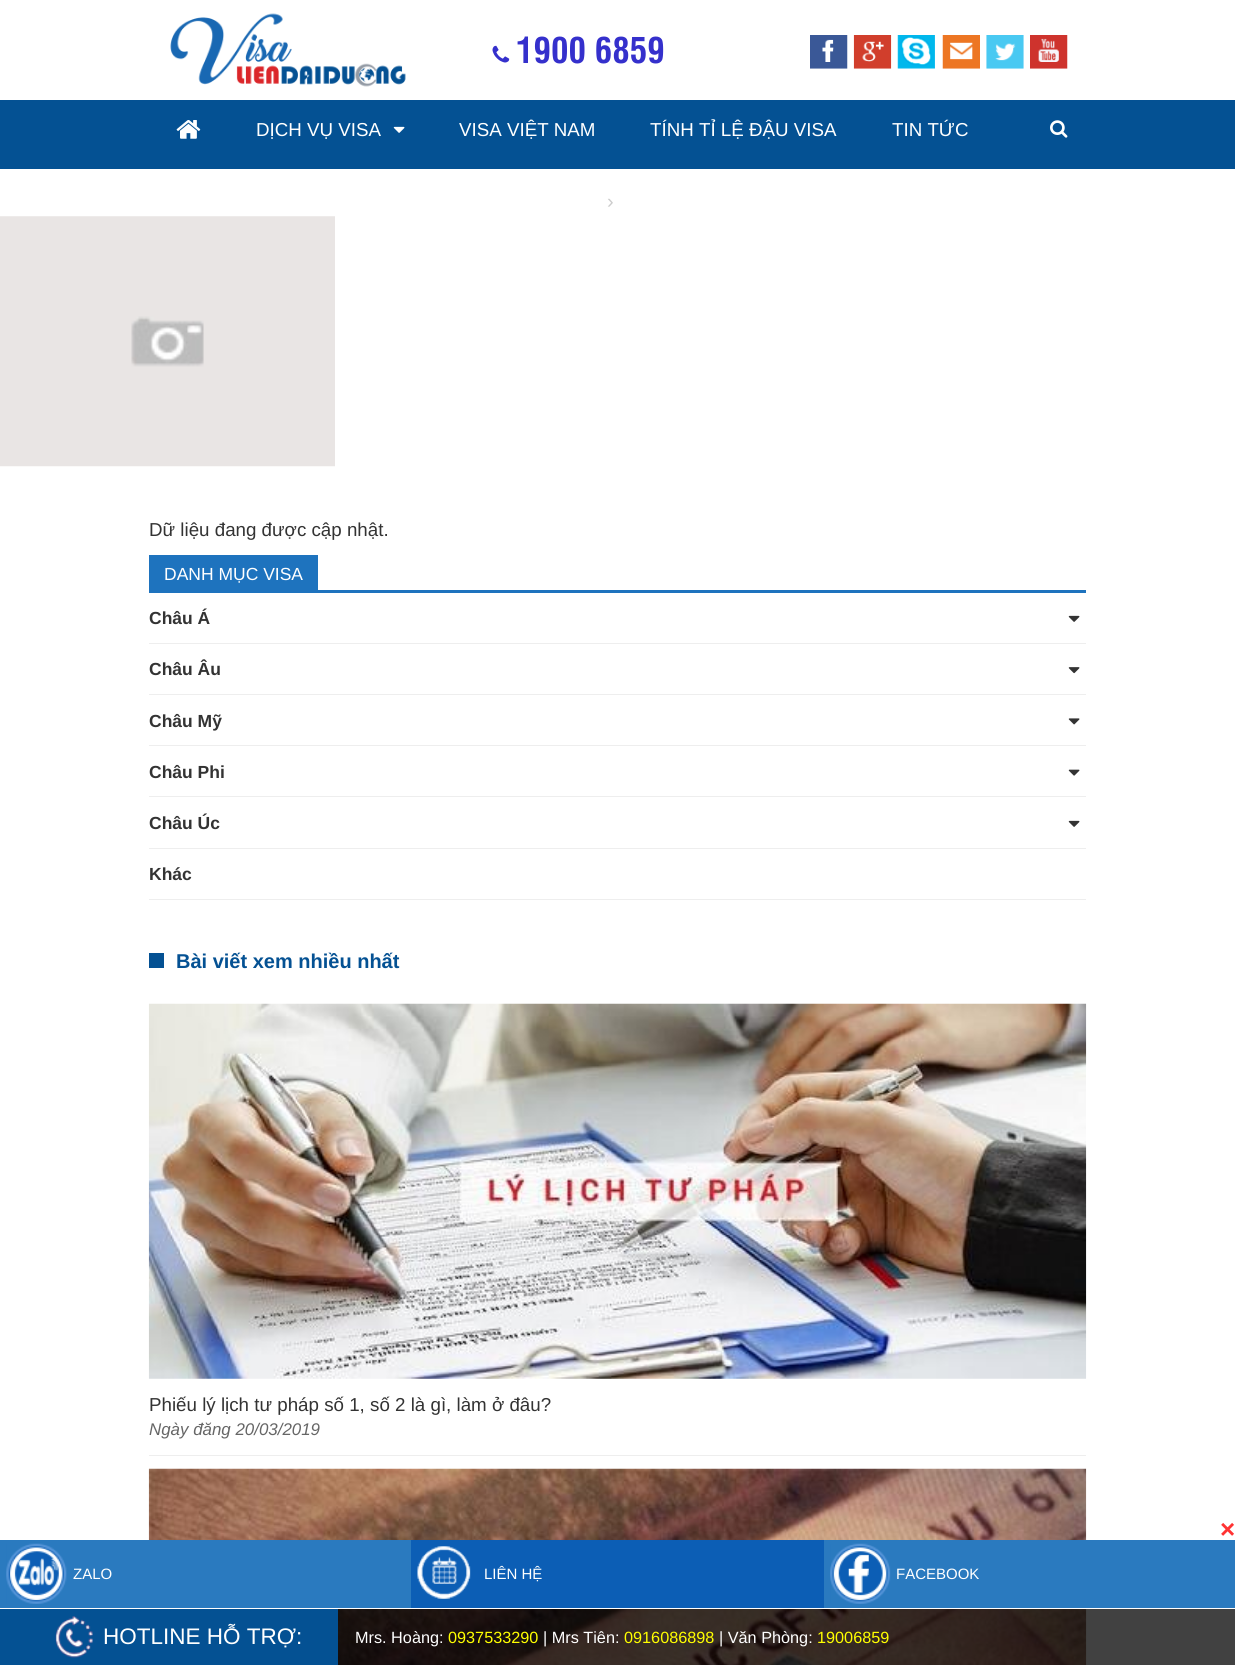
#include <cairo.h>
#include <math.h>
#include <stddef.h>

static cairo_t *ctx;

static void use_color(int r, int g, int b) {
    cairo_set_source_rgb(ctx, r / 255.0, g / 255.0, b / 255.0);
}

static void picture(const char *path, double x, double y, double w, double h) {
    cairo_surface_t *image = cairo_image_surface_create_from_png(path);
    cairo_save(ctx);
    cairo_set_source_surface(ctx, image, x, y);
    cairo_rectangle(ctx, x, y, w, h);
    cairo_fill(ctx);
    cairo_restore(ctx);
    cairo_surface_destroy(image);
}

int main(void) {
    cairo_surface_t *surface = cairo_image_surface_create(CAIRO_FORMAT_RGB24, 1235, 1665);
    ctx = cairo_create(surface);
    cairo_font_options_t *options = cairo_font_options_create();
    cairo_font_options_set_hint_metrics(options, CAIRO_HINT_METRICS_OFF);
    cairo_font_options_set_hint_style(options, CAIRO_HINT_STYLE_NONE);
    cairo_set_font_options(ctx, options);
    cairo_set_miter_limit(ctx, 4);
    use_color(255, 255, 255);
    cairo_paint(ctx);
    picture("img1.png", 170, 13, 236, 74);
    picture("img2.png", 492, 45, 18, 18);
    cairo_select_font_face(ctx, "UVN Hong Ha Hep", CAIRO_FONT_SLANT_NORMAL, CAIRO_FONT_WEIGHT_BOLD);
    cairo_set_font_size(ctx, 35);
    use_color(53, 48, 204);
    cairo_move_to(ctx, 516, 63);
    cairo_show_text(ctx, "1900 6859");
    picture("img3.png", 810, 35, 38, 34);
    picture("img4.png", 853, 35, 39, 34);
    picture("img5.png", 897, 35, 38, 34);
    picture("img6.png", 942, 35, 38, 34);
    picture("img7.png", 986, 35, 38, 34);
    picture("img8.png", 1030, 35, 38, 34);
    use_color(4, 81, 147);
    cairo_rectangle(ctx, 0, 100, 1235, 69);
    cairo_fill(ctx);
    picture("img9.png", 176, 120, 25, 19);
    cairo_select_font_face(ctx, "Liberation Sans", CAIRO_FONT_SLANT_NORMAL, CAIRO_FONT_WEIGHT_NORMAL);
    cairo_set_font_size(ctx, 18.75);
    use_color(255, 255, 255);
    cairo_move_to(ctx, 256, 136);
    cairo_show_text(ctx, "DỊCH VỤ VISA");
    picture("img10.png", 393, 126, 12, 7);
    cairo_move_to(ctx, 459, 136);
    cairo_show_text(ctx, "VISA VIỆT NAM");
    cairo_move_to(ctx, 650, 136);
    cairo_show_text(ctx, "TÍNH TỈ LỆ ĐẬU VISA");
    cairo_move_to(ctx, 892, 136);
    cairo_show_text(ctx, "TIN TỨC");
    picture("img11.png", 1050, 120, 18, 18);
    cairo_set_font_size(ctx, 20);
    use_color(204, 204, 204);
    cairo_move_to(ctx, 607, 208);
    cairo_show_text(ctx, "›");
    picture("img12.png", 0, 216, 335, 251);
    cairo_set_font_size(ctx, 18.75);
    use_color(51, 51, 51);
    cairo_move_to(ctx, 149, 536);
    cairo_show_text(ctx, "Dữ liệu đang được cập nhật.");
    use_color(30, 115, 190);
    cairo_rectangle(ctx, 149, 590, 937, 3);
    cairo_fill(ctx);
    cairo_rectangle(ctx, 149, 555, 169, 35);
    cairo_fill(ctx);
    cairo_set_font_size(ctx, 17.5);
    use_color(255, 255, 255);
    cairo_move_to(ctx, 164, 580);
    cairo_show_text(ctx, "DANH MỤC VISA");
    use_color(238, 238, 238);
    cairo_rectangle(ctx, 149, 643, 937, 1);
    cairo_fill(ctx);
    cairo_select_font_face(ctx, "Liberation Sans", CAIRO_FONT_SLANT_NORMAL, CAIRO_FONT_WEIGHT_BOLD);
    use_color(51, 51, 51);
    cairo_move_to(ctx, 149, 624);
    cairo_show_text(ctx, "Châu Á");
    picture("img13.png", 1068, 615, 12, 7);
    use_color(238, 238, 238);
    cairo_rectangle(ctx, 149, 694, 937, 1);
    cairo_fill(ctx);
    use_color(51, 51, 51);
    cairo_move_to(ctx, 149, 675);
    cairo_show_text(ctx, "Châu Âu");
    picture("img14.png", 1068, 667, 12, 7);
    use_color(238, 238, 238);
    cairo_rectangle(ctx, 149, 745, 937, 1);
    cairo_fill(ctx);
    use_color(51, 51, 51);
    cairo_move_to(ctx, 149, 727);
    cairo_show_text(ctx, "Châu Mỹ");
    picture("img15.png", 1068, 718, 12, 7);
    use_color(238, 238, 238);
    cairo_rectangle(ctx, 149, 796, 937, 1);
    cairo_fill(ctx);
    use_color(51, 51, 51);
    cairo_move_to(ctx, 149, 778);
    cairo_show_text(ctx, "Châu Phi");
    picture("img16.png", 1068, 769, 12, 7);
    use_color(238, 238, 238);
    cairo_rectangle(ctx, 149, 848, 937, 1);
    cairo_fill(ctx);
    use_color(51, 51, 51);
    cairo_move_to(ctx, 149, 829);
    cairo_show_text(ctx, "Châu Úc");
    picture("img13.png", 1068, 820, 12, 7);
    use_color(238, 238, 238);
    cairo_rectangle(ctx, 149, 899, 937, 1);
    cairo_fill(ctx);
    use_color(51, 51, 51);
    cairo_move_to(ctx, 149, 880);
    cairo_show_text(ctx, "Khác");
    use_color(4, 81, 147);
    cairo_rectangle(ctx, 149, 953, 15, 15);
    cairo_fill(ctx);
    cairo_set_font_size(ctx, 20);
    cairo_move_to(ctx, 176, 968);
    cairo_show_text(ctx, "Bài viết xem nhiều nhất");
    use_color(238, 238, 238);
    cairo_rectangle(ctx, 149, 1455, 937, 1);
    cairo_fill(ctx);
    picture("img17.png", 148, 1003, 939, 376);
    cairo_select_font_face(ctx, "Liberation Sans", CAIRO_FONT_SLANT_NORMAL, CAIRO_FONT_WEIGHT_NORMAL);
    cairo_set_font_size(ctx, 18.75);
    use_color(51, 51, 51);
    cairo_move_to(ctx, 149, 1411);
    cairo_show_text(ctx, "Phiếu lý lịch tư pháp số 1, số 2 là gì, làm ở đâu?");
    cairo_select_font_face(ctx, "Liberation Sans", CAIRO_FONT_SLANT_ITALIC, CAIRO_FONT_WEIGHT_NORMAL);
    cairo_set_font_size(ctx, 16.9);
    use_color(102, 102, 102);
    cairo_move_to(ctx, 149, 1435);
    cairo_show_text(ctx, "Ngày đăng 20/03/2019");
    picture("img18.png", 148, 1468, 939, 197);
    use_color(255, 255, 255);
    cairo_rectangle(ctx, 148, 1608, 939, 1);
    cairo_fill(ctx);
    cairo_select_font_face(ctx, "Liberation Sans", CAIRO_FONT_SLANT_NORMAL, CAIRO_FONT_WEIGHT_BOLD);
    cairo_set_font_size(ctx, 26);
    use_color(255, 51, 51);
    cairo_move_to(ctx, 1220, 1538);
    cairo_show_text(ctx, "×");
    use_color(42, 122, 191);
    cairo_rectangle(ctx, 0, 1540, 411, 68);
    cairo_fill(ctx);
    picture("img19.png", 6, 1543, 61, 61);
    cairo_select_font_face(ctx, "Liberation Sans", CAIRO_FONT_SLANT_NORMAL, CAIRO_FONT_WEIGHT_NORMAL);
    cairo_set_font_size(ctx, 15);
    use_color(255, 255, 255);
    cairo_move_to(ctx, 73, 1579);
    cairo_show_text(ctx, "ZALO");
    use_color(12, 94, 181);
    cairo_rectangle(ctx, 411, 1540, 413, 68);
    cairo_fill(ctx);
    picture("img20.png", 417, 1546, 54, 53);
    use_color(255, 255, 255);
    cairo_move_to(ctx, 484, 1579);
    cairo_show_text(ctx, "LIÊN HỆ");
    use_color(42, 122, 191);
    cairo_rectangle(ctx, 824, 1540, 411, 68);
    cairo_fill(ctx);
    picture("img21.png", 830, 1543, 61, 61);
    use_color(255, 255, 255);
    cairo_move_to(ctx, 896, 1579);
    cairo_show_text(ctx, "FACEBOOK");
    cairo_set_source_rgba(ctx, 0.008, 0.008, 0.008, 0.75);
    cairo_rectangle(ctx, 338, 1609, 897, 56);
    cairo_fill(ctx);
    use_color(4, 81, 147);
    cairo_rectangle(ctx, 0, 1609, 338, 56);
    cairo_fill(ctx);
    picture("img22.png", 55, 1616, 38, 42);
    cairo_set_font_size(ctx, 22.5);
    use_color(255, 255, 255);
    cairo_move_to(ctx, 103, 1644);
    cairo_show_text(ctx, "HOTLINE HỖ TRỢ:");
    cairo_set_font_size(ctx, 16.25);
    cairo_move_to(ctx, 355, 1643);
    cairo_show_text(ctx, "Mrs. Hoàng:");
    use_color(255, 255, 0);
    cairo_move_to(ctx, 448, 1643);
    cairo_show_text(ctx, "0937533290");
    use_color(255, 255, 255);
    cairo_move_to(ctx, 543, 1643);
    cairo_show_text(ctx, "| Mrs Tiên:");
    use_color(255, 255, 0);
    cairo_move_to(ctx, 624, 1643);
    cairo_show_text(ctx, "0916086898");
    use_color(255, 255, 255);
    cairo_move_to(ctx, 719, 1643);
    cairo_show_text(ctx, "| Văn Phòng:");
    use_color(255, 255, 0);
    cairo_move_to(ctx, 817, 1643);
    cairo_show_text(ctx, "19006859");
    cairo_surface_write_to_png(surface, "result.png");
    cairo_font_options_destroy(options);
    cairo_destroy(ctx);
    cairo_surface_destroy(surface);
    return 0;
}
